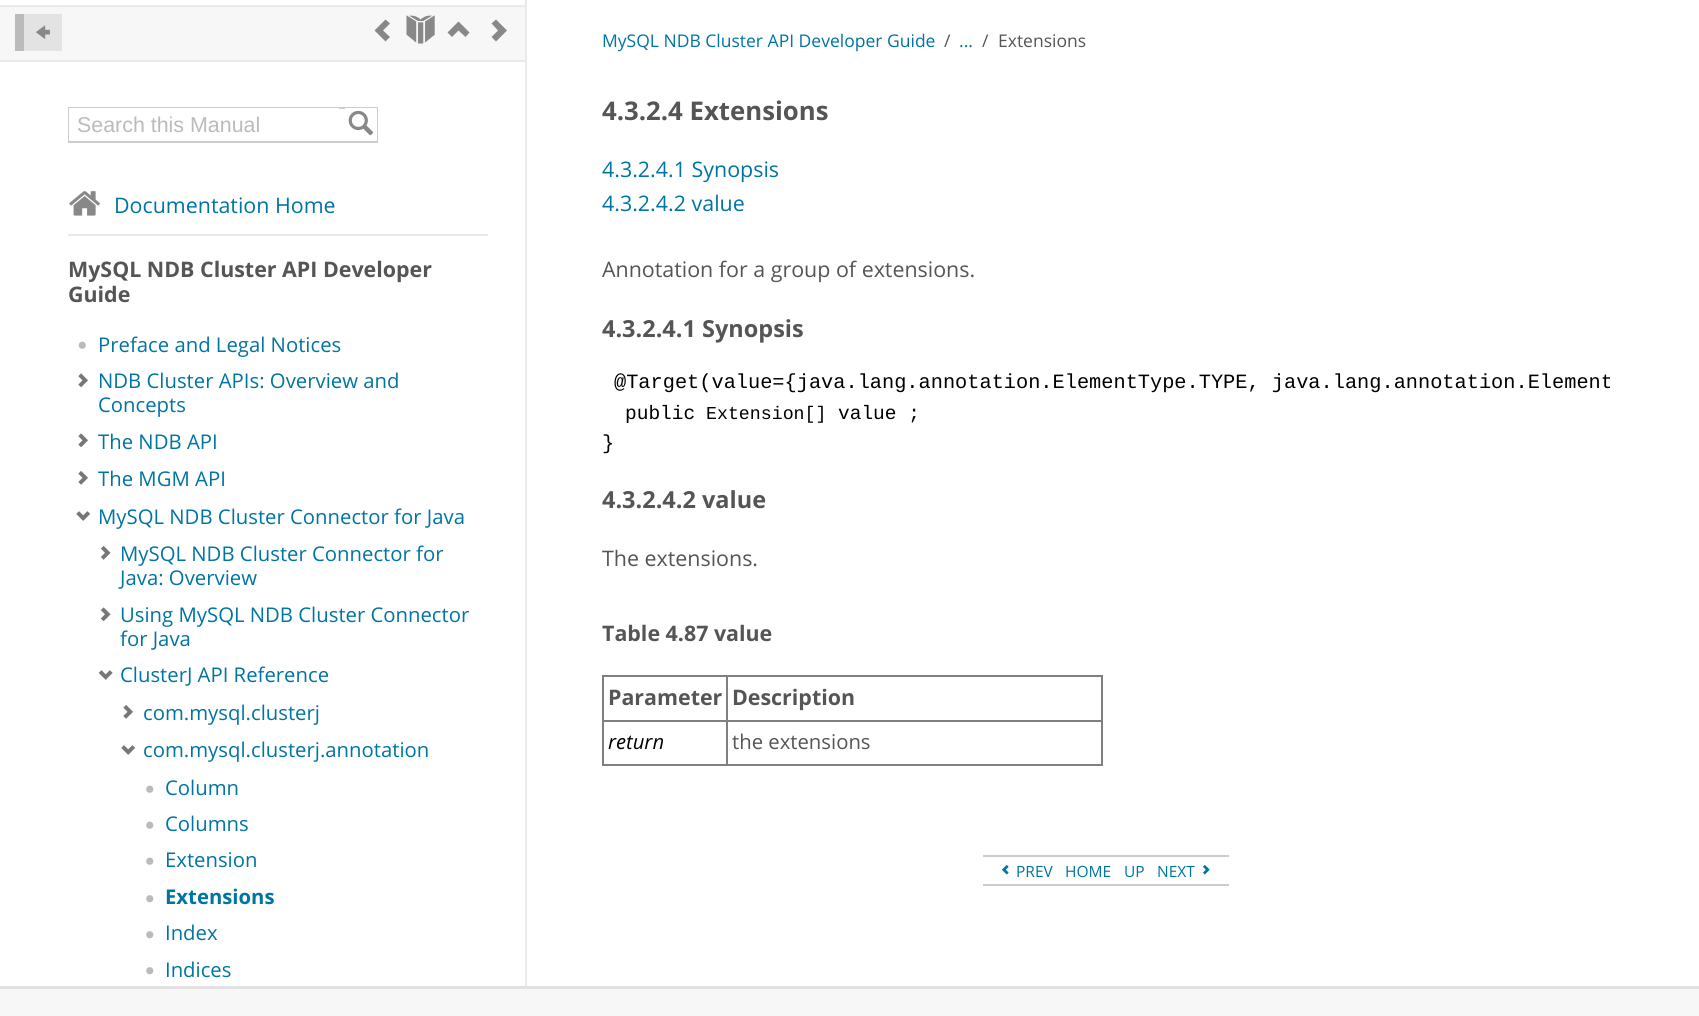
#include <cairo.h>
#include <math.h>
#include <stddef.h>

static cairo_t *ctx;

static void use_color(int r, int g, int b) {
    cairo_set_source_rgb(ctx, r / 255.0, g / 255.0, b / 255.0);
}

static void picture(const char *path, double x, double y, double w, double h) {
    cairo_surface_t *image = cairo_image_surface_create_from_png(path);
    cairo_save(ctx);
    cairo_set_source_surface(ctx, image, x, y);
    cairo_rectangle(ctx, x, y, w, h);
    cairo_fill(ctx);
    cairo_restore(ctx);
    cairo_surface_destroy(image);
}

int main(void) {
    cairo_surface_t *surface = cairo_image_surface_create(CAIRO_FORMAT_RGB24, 1699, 1016);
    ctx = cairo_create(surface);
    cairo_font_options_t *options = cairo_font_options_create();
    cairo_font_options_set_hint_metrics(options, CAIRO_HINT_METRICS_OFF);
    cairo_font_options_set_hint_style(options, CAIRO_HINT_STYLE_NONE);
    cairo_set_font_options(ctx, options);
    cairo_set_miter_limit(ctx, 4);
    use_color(255, 255, 255);
    cairo_paint(ctx);
    use_color(233, 234, 235);
    cairo_rectangle(ctx, 525, 0, 2, 986);
    cairo_fill(ctx);
    use_color(247, 247, 247);
    cairo_rectangle(ctx, 0, 7, 525, 53);
    cairo_fill(ctx);
    use_color(233, 234, 235);
    cairo_rectangle(ctx, 0, 5, 525, 2);
    cairo_fill(ctx);
    cairo_rectangle(ctx, 0, 60, 525, 2);
    cairo_fill(ctx);
    use_color(227, 227, 227);
    cairo_rectangle(ctx, 24, 14, 38, 37);
    cairo_fill(ctx);
    use_color(187, 187, 187);
    cairo_rectangle(ctx, 15, 14, 9, 37);
    cairo_fill(ctx);
    picture("img1.png", 36, 25, 14, 14);
    use_color(136, 136, 136);
    cairo_new_path(ctx);
    cairo_move_to(ctx, 390, 23.5);
    cairo_line_to(ctx, 385.5, 19.5);
    cairo_line_to(ctx, 374.5, 30.5);
    cairo_line_to(ctx, 385.5, 41.5);
    cairo_line_to(ctx, 390, 37);
    cairo_line_to(ctx, 383, 30.5);
    cairo_close_path(ctx);
    cairo_fill(ctx);
    picture("img2.png", 406, 15, 29, 29);
    cairo_new_path(ctx);
    cairo_move_to(ctx, 458.5, 21.5);
    cairo_line_to(ctx, 447.5, 32.5);
    cairo_line_to(ctx, 452, 37);
    cairo_line_to(ctx, 458.5, 30.5);
    cairo_line_to(ctx, 465.5, 37);
    cairo_line_to(ctx, 469.5, 32.5);
    cairo_close_path(ctx);
    cairo_move_to(ctx, 496, 19.5);
    cairo_line_to(ctx, 491.5, 23.5);
    cairo_line_to(ctx, 498, 30.5);
    cairo_line_to(ctx, 491.5, 37);
    cairo_line_to(ctx, 496, 41.5);
    cairo_line_to(ctx, 507, 30.5);
    cairo_close_path(ctx);
    cairo_fill(ctx);
    cairo_rectangle(ctx, 69, 108, 308, 34);
    use_color(204, 204, 204);
    cairo_stroke(ctx);
    use_color(255, 255, 255);
    cairo_rectangle(ctx, 69, 108, 270, 33);
    cairo_fill(ctx);
    cairo_select_font_face(ctx, "Liberation Sans", CAIRO_FONT_SLANT_NORMAL, CAIRO_FONT_WEIGHT_NORMAL);
    cairo_set_font_size(ctx, 21.4);
    use_color(187, 187, 187);
    cairo_move_to(ctx, 77, 132);
    cairo_show_text(ctx, "Search this Manual");
    use_color(255, 255, 255);
    cairo_rectangle(ctx, 345, 108, 32, 33);
    cairo_fill(ctx);
    picture("img3.png", 348, 110, 26, 26);
    picture("img4.png", 69, 191, 31, 25);
    cairo_select_font_face(ctx, "Open Sans", CAIRO_FONT_SLANT_NORMAL, CAIRO_FONT_WEIGHT_NORMAL);
    use_color(0, 116, 163);
    cairo_move_to(ctx, 114, 213);
    cairo_show_text(ctx, "Documentation Home");
    use_color(233, 234, 235);
    cairo_rectangle(ctx, 68, 234, 420, 2);
    cairo_fill(ctx);
    cairo_select_font_face(ctx, "Open Sans", CAIRO_FONT_SLANT_NORMAL, CAIRO_FONT_WEIGHT_BOLD);
    use_color(85, 85, 85);
    cairo_move_to(ctx, 68, 277);
    cairo_show_text(ctx, "MySQL NDB Cluster API Developer");
    cairo_move_to(ctx, 68, 302);
    cairo_show_text(ctx, "Guide");
    picture("img5.png", 78, 341, 8, 8);
    cairo_select_font_face(ctx, "Open Sans", CAIRO_FONT_SLANT_NORMAL, CAIRO_FONT_WEIGHT_NORMAL);
    cairo_set_font_size(ctx, 20.3);
    use_color(0, 116, 163);
    cairo_move_to(ctx, 98, 352);
    cairo_show_text(ctx, "Preface and Legal Notices");
    picture("img6.png", 78, 373, 10, 15);
    cairo_move_to(ctx, 98, 388);
    cairo_show_text(ctx, "NDB Cluster APIs: Overview and");
    cairo_move_to(ctx, 98, 412);
    cairo_show_text(ctx, "Concepts");
    picture("img6.png", 78, 433, 10, 15);
    cairo_move_to(ctx, 98, 449);
    cairo_show_text(ctx, "The NDB API");
    picture("img7.png", 78, 471, 10, 14);
    cairo_move_to(ctx, 98, 486);
    cairo_show_text(ctx, "The MGM API");
    picture("img8.png", 76, 511, 14, 10);
    cairo_move_to(ctx, 98, 524);
    cairo_show_text(ctx, "MySQL NDB Cluster Connector for Java");
    picture("img9.png", 100, 546, 11, 14);
    cairo_move_to(ctx, 120, 561);
    cairo_show_text(ctx, "MySQL NDB Cluster Connector for");
    cairo_move_to(ctx, 120, 585);
    cairo_show_text(ctx, "Java: Overview");
    picture("img10.png", 100, 607, 11, 15);
    cairo_move_to(ctx, 120, 622);
    cairo_show_text(ctx, "Using MySQL NDB Cluster Connector");
    cairo_move_to(ctx, 120, 646);
    cairo_show_text(ctx, "for Java");
    picture("img11.png", 98, 670, 15, 10);
    cairo_move_to(ctx, 120, 682);
    cairo_show_text(ctx, "ClusterJ API Reference");
    picture("img7.png", 123, 705, 10, 14);
    cairo_move_to(ctx, 143, 720);
    cairo_show_text(ctx, "com.mysql.clusterj");
    picture("img8.png", 121, 745, 14, 10);
    cairo_move_to(ctx, 143, 757);
    cairo_show_text(ctx, "com.mysql.clusterj.annotation");
    picture("img12.png", 146, 785, 8, 8);
    cairo_move_to(ctx, 165, 795);
    cairo_show_text(ctx, "Column");
    picture("img12.png", 146, 821, 8, 8);
    cairo_move_to(ctx, 165, 831);
    cairo_show_text(ctx, "Columns");
    picture("img12.png", 146, 857, 8, 8);
    cairo_move_to(ctx, 165, 867);
    cairo_show_text(ctx, "Extension");
    picture("img13.png", 146, 895, 8, 8);
    cairo_select_font_face(ctx, "Open Sans", CAIRO_FONT_SLANT_NORMAL, CAIRO_FONT_WEIGHT_BOLD);
    cairo_move_to(ctx, 165, 904);
    cairo_show_text(ctx, "Extensions");
    picture("img13.png", 146, 931, 8, 8);
    cairo_select_font_face(ctx, "Open Sans", CAIRO_FONT_SLANT_NORMAL, CAIRO_FONT_WEIGHT_NORMAL);
    cairo_move_to(ctx, 165, 940);
    cairo_show_text(ctx, "Index");
    picture("img13.png", 146, 967, 8, 8);
    cairo_move_to(ctx, 165, 977);
    cairo_show_text(ctx, "Indices");
    cairo_set_font_size(ctx, 17.5);
    cairo_move_to(ctx, 602, 47);
    cairo_show_text(ctx, "MySQL NDB Cluster API Developer Guide");
    use_color(85, 85, 85);
    cairo_move_to(ctx, 944, 47);
    cairo_show_text(ctx, "/");
    use_color(0, 116, 163);
    cairo_move_to(ctx, 959, 47);
    cairo_show_text(ctx, "...");
    use_color(85, 85, 85);
    cairo_move_to(ctx, 982, 47);
    cairo_show_text(ctx, "/");
    cairo_move_to(ctx, 998, 47);
    cairo_show_text(ctx, "Extensions");
    cairo_select_font_face(ctx, "Open Sans", CAIRO_FONT_SLANT_NORMAL, CAIRO_FONT_WEIGHT_BOLD);
    cairo_set_font_size(ctx, 25.75);
    cairo_move_to(ctx, 602, 120);
    cairo_show_text(ctx, "4.3.2.4 Extensions");
    cairo_select_font_face(ctx, "Open Sans", CAIRO_FONT_SLANT_NORMAL, CAIRO_FONT_WEIGHT_NORMAL);
    cairo_set_font_size(ctx, 21.4);
    use_color(0, 116, 163);
    cairo_move_to(ctx, 602, 177);
    cairo_show_text(ctx, "4.3.2.4.1 Synopsis");
    cairo_move_to(ctx, 602, 211);
    cairo_show_text(ctx, "4.3.2.4.2 value");
    use_color(85, 85, 85);
    cairo_move_to(ctx, 602, 277);
    cairo_show_text(ctx, "Annotation for a group of extensions.");
    cairo_select_font_face(ctx, "Open Sans", CAIRO_FONT_SLANT_NORMAL, CAIRO_FONT_WEIGHT_BOLD);
    cairo_set_font_size(ctx, 23.5);
    cairo_move_to(ctx, 602, 337);
    cairo_show_text(ctx, "4.3.2.4.1 Synopsis");
    cairo_save(ctx);
    cairo_rectangle(ctx, 602, 369, 1008, 92);
    cairo_clip(ctx);
    cairo_select_font_face(ctx, "Liberation Mono", CAIRO_FONT_SLANT_NORMAL, CAIRO_FONT_WEIGHT_NORMAL);
    cairo_set_font_size(ctx, 20.3);
    use_color(0, 0, 0);
    cairo_move_to(ctx, 614, 388);
    cairo_show_text(ctx, "@Target(value={java.lang.annotation.ElementType.TYPE, java.lang.annotation.Element");
    cairo_restore(ctx);
    cairo_select_font_face(ctx, "Liberation Mono", CAIRO_FONT_SLANT_NORMAL, CAIRO_FONT_WEIGHT_NORMAL);
    cairo_set_font_size(ctx, 19.5);
    use_color(0, 0, 0);
    cairo_move_to(ctx, 625, 419);
    cairo_show_text(ctx, "public");
    cairo_set_font_size(ctx, 18.25);
    cairo_move_to(ctx, 706, 419);
    cairo_show_text(ctx, "Extension[]");
    cairo_set_font_size(ctx, 19.5);
    cairo_move_to(ctx, 838, 419);
    cairo_show_text(ctx, "value ;");
    cairo_set_font_size(ctx, 20.3);
    cairo_move_to(ctx, 602, 449);
    cairo_show_text(ctx, "}");
    cairo_select_font_face(ctx, "Open Sans", CAIRO_FONT_SLANT_NORMAL, CAIRO_FONT_WEIGHT_BOLD);
    cairo_set_font_size(ctx, 23.5);
    use_color(85, 85, 85);
    cairo_move_to(ctx, 602, 508);
    cairo_show_text(ctx, "4.3.2.4.2 value");
    cairo_select_font_face(ctx, "Open Sans", CAIRO_FONT_SLANT_NORMAL, CAIRO_FONT_WEIGHT_NORMAL);
    cairo_set_font_size(ctx, 21.4);
    cairo_move_to(ctx, 602, 566);
    cairo_show_text(ctx, "The extensions.");
    cairo_select_font_face(ctx, "Open Sans", CAIRO_FONT_SLANT_NORMAL, CAIRO_FONT_WEIGHT_BOLD);
    cairo_move_to(ctx, 602, 641);
    cairo_show_text(ctx, "Table 4.87 value");
    use_color(128, 128, 128);
    cairo_rectangle(ctx, 726, 675, 377, 2);
    cairo_fill(ctx);
    cairo_rectangle(ctx, 726, 720, 377, 2);
    cairo_fill(ctx);
    cairo_rectangle(ctx, 1101, 720, 2, 45);
    cairo_fill(ctx);
    cairo_rectangle(ctx, 726, 764, 377, 2);
    cairo_fill(ctx);
    cairo_rectangle(ctx, 726, 720, 2, 45);
    cairo_fill(ctx);
    cairo_rectangle(ctx, 602, 720, 126, 2);
    cairo_fill(ctx);
    cairo_rectangle(ctx, 726, 675, 2, 47);
    cairo_fill(ctx);
    cairo_rectangle(ctx, 602, 675, 126, 2);
    cairo_fill(ctx);
    cairo_rectangle(ctx, 602, 764, 126, 2);
    cairo_fill(ctx);
    cairo_rectangle(ctx, 602, 720, 2, 45);
    cairo_fill(ctx);
    cairo_rectangle(ctx, 602, 675, 2, 47);
    cairo_fill(ctx);
    use_color(85, 85, 85);
    cairo_move_to(ctx, 608, 705);
    cairo_show_text(ctx, "Parameter");
    use_color(128, 128, 128);
    cairo_rectangle(ctx, 1101, 675, 2, 47);
    cairo_fill(ctx);
    use_color(85, 85, 85);
    cairo_move_to(ctx, 732, 705);
    cairo_show_text(ctx, "Description");
    cairo_select_font_face(ctx, "Open Sans", CAIRO_FONT_SLANT_ITALIC, CAIRO_FONT_WEIGHT_NORMAL);
    cairo_set_font_size(ctx, 20.3);
    use_color(0, 0, 0);
    cairo_move_to(ctx, 608, 749);
    cairo_show_text(ctx, "return");
    cairo_select_font_face(ctx, "Open Sans", CAIRO_FONT_SLANT_NORMAL, CAIRO_FONT_WEIGHT_NORMAL);
    use_color(85, 85, 85);
    cairo_move_to(ctx, 732, 749);
    cairo_show_text(ctx, "the extensions");
    use_color(204, 204, 204);
    cairo_rectangle(ctx, 983, 855, 246, 2);
    cairo_fill(ctx);
    cairo_rectangle(ctx, 983, 884, 246, 2);
    cairo_fill(ctx);
    picture("img14.png", 1002, 865, 7, 10);
    cairo_set_font_size(ctx, 15.5);
    use_color(0, 116, 163);
    cairo_move_to(ctx, 1016, 877);
    cairo_show_text(ctx, "PREV");
    cairo_move_to(ctx, 1065, 877);
    cairo_show_text(ctx, "HOME");
    cairo_move_to(ctx, 1124, 877);
    cairo_show_text(ctx, "UP");
    cairo_move_to(ctx, 1157, 877);
    cairo_show_text(ctx, "NEXT");
    picture("img15.png", 1203, 865, 7, 10);
    use_color(247, 247, 247);
    cairo_rectangle(ctx, 0, 989, 1699, 27);
    cairo_fill(ctx);
    use_color(225, 225, 225);
    cairo_rectangle(ctx, 0, 986, 1699, 3);
    cairo_fill(ctx);
    cairo_surface_write_to_png(surface, "result.png");
    cairo_font_options_destroy(options);
    cairo_destroy(ctx);
    cairo_surface_destroy(surface);
    return 0;
}
